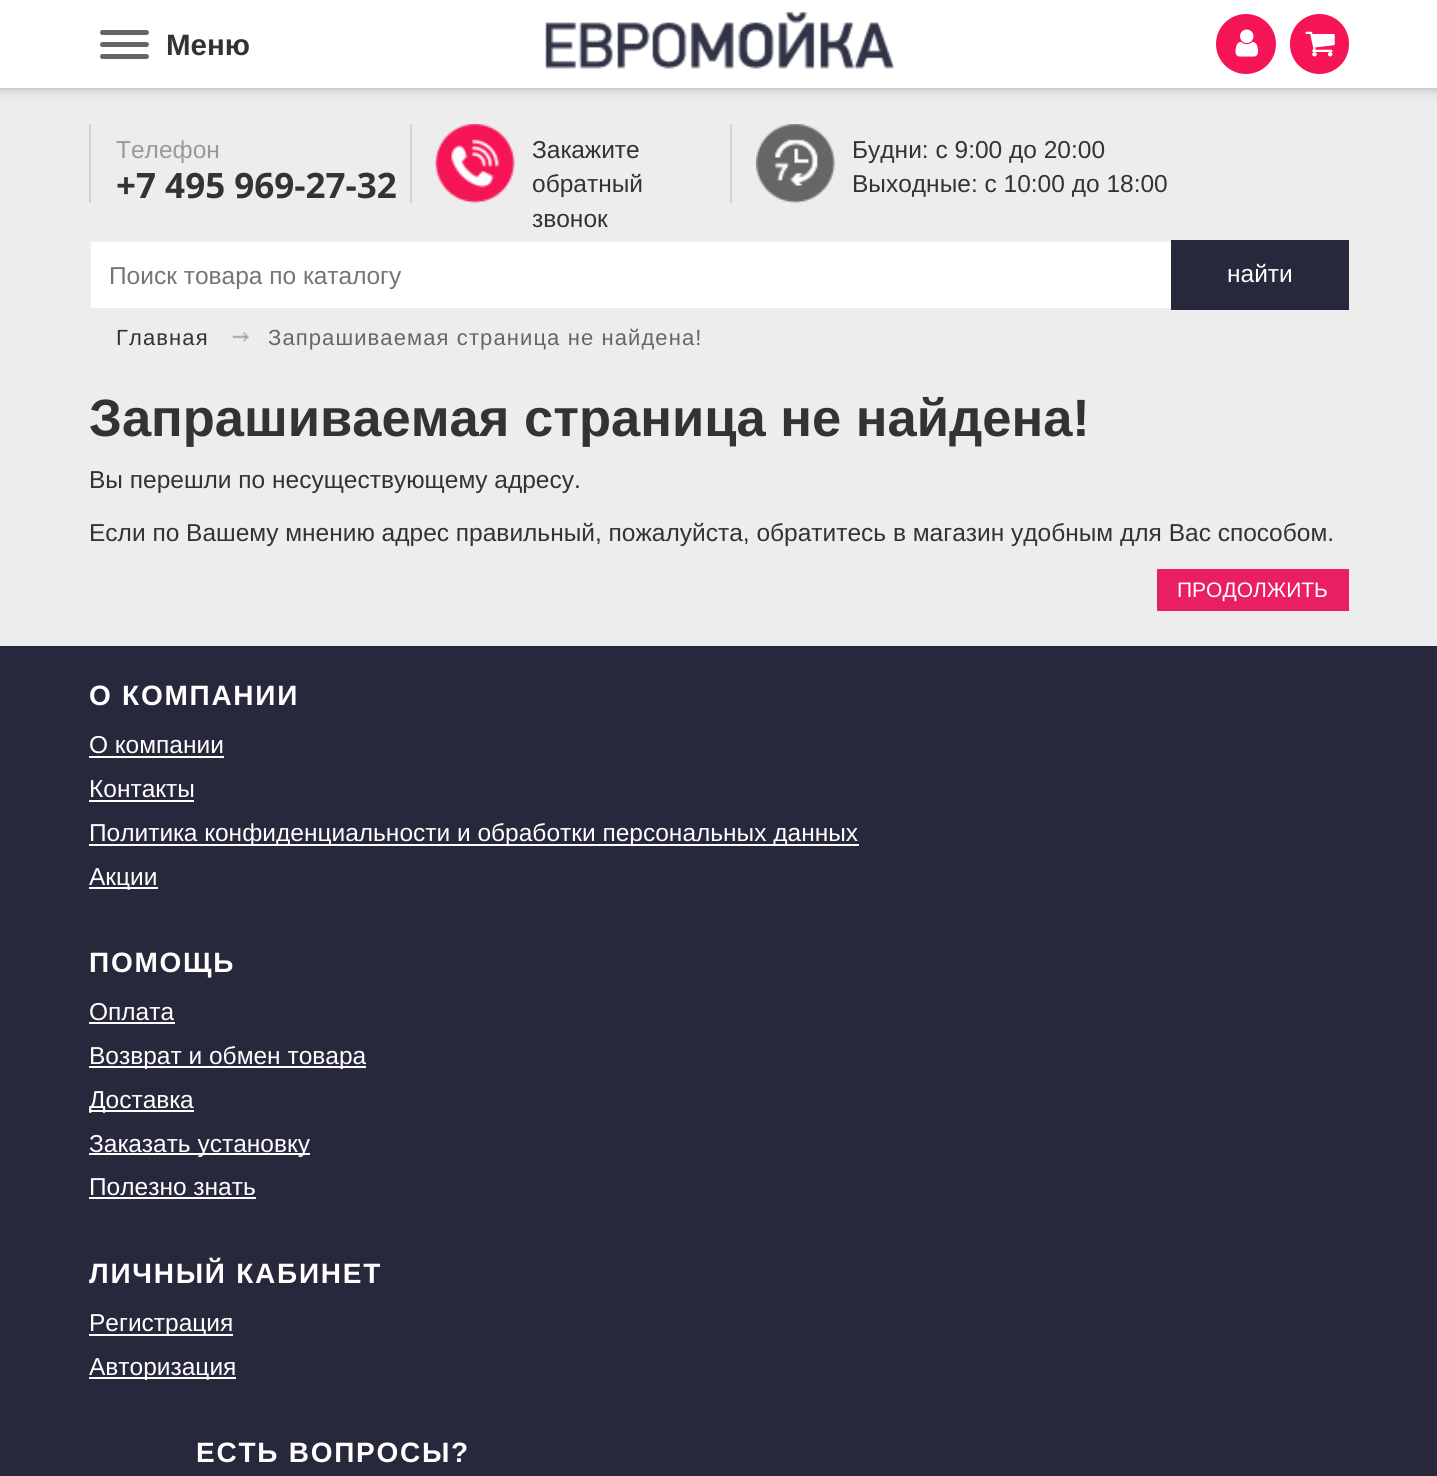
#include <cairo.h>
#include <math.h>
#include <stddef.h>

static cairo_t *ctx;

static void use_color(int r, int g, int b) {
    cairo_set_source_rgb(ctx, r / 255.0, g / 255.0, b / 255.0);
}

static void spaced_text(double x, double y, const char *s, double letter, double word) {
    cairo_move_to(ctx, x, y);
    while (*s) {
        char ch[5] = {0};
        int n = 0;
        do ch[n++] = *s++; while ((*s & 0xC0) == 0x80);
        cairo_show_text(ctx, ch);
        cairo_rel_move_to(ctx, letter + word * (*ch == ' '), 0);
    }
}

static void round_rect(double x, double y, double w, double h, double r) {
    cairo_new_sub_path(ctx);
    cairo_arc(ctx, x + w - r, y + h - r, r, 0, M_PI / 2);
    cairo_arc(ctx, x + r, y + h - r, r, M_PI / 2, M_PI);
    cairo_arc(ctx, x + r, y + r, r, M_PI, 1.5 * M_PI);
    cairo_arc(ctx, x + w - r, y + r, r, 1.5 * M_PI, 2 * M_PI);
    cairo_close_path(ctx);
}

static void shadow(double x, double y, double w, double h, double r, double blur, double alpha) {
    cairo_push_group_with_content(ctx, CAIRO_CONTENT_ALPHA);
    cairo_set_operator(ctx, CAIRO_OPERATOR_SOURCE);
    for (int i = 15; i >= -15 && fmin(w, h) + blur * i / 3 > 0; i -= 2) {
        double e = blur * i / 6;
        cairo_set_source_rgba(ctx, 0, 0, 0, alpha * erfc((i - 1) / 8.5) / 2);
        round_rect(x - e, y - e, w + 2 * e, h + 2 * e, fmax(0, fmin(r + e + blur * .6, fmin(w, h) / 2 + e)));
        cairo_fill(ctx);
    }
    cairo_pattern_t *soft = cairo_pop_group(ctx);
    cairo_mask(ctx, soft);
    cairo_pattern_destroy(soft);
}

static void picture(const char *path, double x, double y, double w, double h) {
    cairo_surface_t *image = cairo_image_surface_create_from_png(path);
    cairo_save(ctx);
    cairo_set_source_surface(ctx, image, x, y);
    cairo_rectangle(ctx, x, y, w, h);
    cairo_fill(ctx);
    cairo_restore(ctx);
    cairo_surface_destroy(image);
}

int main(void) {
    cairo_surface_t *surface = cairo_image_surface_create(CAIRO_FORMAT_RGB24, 1437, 1476);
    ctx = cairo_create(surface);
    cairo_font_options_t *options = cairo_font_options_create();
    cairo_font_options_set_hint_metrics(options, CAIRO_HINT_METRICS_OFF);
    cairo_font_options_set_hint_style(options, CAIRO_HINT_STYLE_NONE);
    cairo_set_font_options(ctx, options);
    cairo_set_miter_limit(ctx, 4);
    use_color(237, 237, 237);
    cairo_paint(ctx);
    use_color(170, 170, 170);
    shadow(0, 0, 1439, 88, 0, 6, 1);
    use_color(255, 255, 255);
    cairo_rectangle(ctx, 0, 0, 1437, 88);
    cairo_fill(ctx);
    use_color(102, 102, 102);
    round_rect(100, 54, 49, 5, 2.5);
    cairo_fill(ctx);
    round_rect(100, 30, 49, 5, 2.5);
    cairo_fill(ctx);
    round_rect(100, 42, 49, 5, 2.5);
    cairo_fill(ctx);
    cairo_select_font_face(ctx, "Liberation Sans", CAIRO_FONT_SLANT_NORMAL, CAIRO_FONT_WEIGHT_BOLD);
    cairo_set_font_size(ctx, 29.5);
    use_color(51, 51, 51);
    cairo_move_to(ctx, 166, 55);
    cairo_show_text(ctx, "Меню");
    use_color(245, 21, 87);
    cairo_new_path(ctx);
    cairo_arc(ctx, 1246, 44, 30, 0, 2 * M_PI);
    cairo_fill(ctx);
    picture("img1.png", 1235, 29, 23, 28);
    round_rect(1290, 14, 59, 60, 29.5);
    cairo_fill(ctx);
    picture("img2.png", 1305, 31, 30, 26);
    picture("img3.png", 545, 11, 350, 58);
    use_color(211, 211, 211);
    cairo_rectangle(ctx, 89, 124, 2, 79);
    cairo_fill(ctx);
    cairo_select_font_face(ctx, "Liberation Sans", CAIRO_FONT_SLANT_NORMAL, CAIRO_FONT_WEIGHT_NORMAL);
    cairo_set_font_size(ctx, 24.5);
    use_color(153, 153, 153);
    cairo_move_to(ctx, 116, 158);
    cairo_show_text(ctx, "Телефон");
    cairo_select_font_face(ctx, "Open Sans", CAIRO_FONT_SLANT_NORMAL, CAIRO_FONT_WEIGHT_BOLD);
    cairo_set_font_size(ctx, 35);
    use_color(51, 51, 51);
    cairo_move_to(ctx, 116, 198);
    cairo_show_text(ctx, "+7 495 969-27-32");
    use_color(211, 211, 211);
    cairo_rectangle(ctx, 410, 124, 2, 79);
    cairo_fill(ctx);
    picture("img4.png", 435, 124, 80, 79);
    cairo_select_font_face(ctx, "Liberation Sans", CAIRO_FONT_SLANT_NORMAL, CAIRO_FONT_WEIGHT_NORMAL);
    cairo_set_font_size(ctx, 24.5);
    use_color(51, 51, 51);
    cairo_move_to(ctx, 532, 158);
    cairo_show_text(ctx, "Закажите");
    cairo_move_to(ctx, 532, 192);
    cairo_show_text(ctx, "обратный");
    cairo_move_to(ctx, 532, 227);
    cairo_show_text(ctx, "звонок");
    use_color(211, 211, 211);
    cairo_rectangle(ctx, 730, 124, 2, 79);
    cairo_fill(ctx);
    picture("img5.png", 756, 124, 79, 79);
    use_color(51, 51, 51);
    cairo_move_to(ctx, 852, 158);
    cairo_show_text(ctx, "Будни: с 9:00 до 20:00");
    cairo_move_to(ctx, 852, 192);
    cairo_show_text(ctx, "Выходные: с 10:00 до 18:00");
    use_color(255, 255, 255);
    cairo_rectangle(ctx, 91, 242, 1080, 66);
    cairo_fill(ctx);
    use_color(117, 117, 117);
    cairo_move_to(ctx, 109, 284);
    cairo_show_text(ctx, "Поиск товара по каталогу");
    use_color(40, 40, 60);
    cairo_rectangle(ctx, 1171, 240, 178, 70);
    cairo_fill(ctx);
    use_color(255, 255, 255);
    cairo_move_to(ctx, 1227, 282);
    cairo_show_text(ctx, "найти");
    cairo_set_font_size(ctx, 22);
    use_color(51, 51, 51);
    spaced_text(116, 345, "Главная", 1.1, 0);
    picture("img6.png", 232, 332, 17, 10);
    use_color(102, 102, 102);
    spaced_text(268, 345, "Запрашиваемая страница не найдена!", 1.1, 0);
    cairo_select_font_face(ctx, "Liberation Sans", CAIRO_FONT_SLANT_NORMAL, CAIRO_FONT_WEIGHT_BOLD);
    cairo_set_font_size(ctx, 52.5);
    use_color(51, 51, 51);
    cairo_move_to(ctx, 89, 436);
    cairo_show_text(ctx, "Запрашиваемая страница не найдена!");
    cairo_select_font_face(ctx, "Liberation Sans", CAIRO_FONT_SLANT_NORMAL, CAIRO_FONT_WEIGHT_NORMAL);
    cairo_set_font_size(ctx, 24.5);
    cairo_move_to(ctx, 89, 488);
    cairo_show_text(ctx, "Вы перешли по несуществующему адресу.");
    cairo_move_to(ctx, 89, 541);
    cairo_show_text(ctx, "Если по Вашему мнению адрес правильный, пожалуйста, обратитесь в магазин удобным для Вас способом.");
    use_color(233, 30, 99);
    cairo_rectangle(ctx, 1157, 569, 192, 42);
    cairo_fill(ctx);
    cairo_set_font_size(ctx, 21);
    use_color(255, 255, 255);
    cairo_move_to(ctx, 1177, 597);
    cairo_show_text(ctx, "ПРОДОЛЖИТЬ");
    use_color(40, 40, 60);
    cairo_rectangle(ctx, 0, 646, 1437, 830);
    cairo_fill(ctx);
    cairo_select_font_face(ctx, "Liberation Sans", CAIRO_FONT_SLANT_NORMAL, CAIRO_FONT_WEIGHT_BOLD);
    cairo_set_font_size(ctx, 28);
    use_color(255, 255, 255);
    spaced_text(89, 705, "О КОМПАНИИ", 1.75, 0);
    cairo_select_font_face(ctx, "Liberation Sans", CAIRO_FONT_SLANT_NORMAL, CAIRO_FONT_WEIGHT_NORMAL);
    cairo_set_font_size(ctx, 24.5);
    cairo_move_to(ctx, 89, 753);
    cairo_show_text(ctx, "О компании");
    cairo_rectangle(ctx, 89, 756, 135, 2);
    cairo_fill(ctx);
    cairo_move_to(ctx, 89, 797);
    cairo_show_text(ctx, "Контакты");
    cairo_rectangle(ctx, 89, 800, 105, 2);
    cairo_fill(ctx);
    cairo_rectangle(ctx, 89, 844, 770, 2);
    cairo_fill(ctx);
    cairo_move_to(ctx, 89, 841);
    cairo_show_text(ctx, "Политика конфиденциальности и обработки персональных данных");
    cairo_rectangle(ctx, 89, 887, 69, 2);
    cairo_fill(ctx);
    cairo_move_to(ctx, 89, 885);
    cairo_show_text(ctx, "Акции");
    cairo_select_font_face(ctx, "Liberation Sans", CAIRO_FONT_SLANT_NORMAL, CAIRO_FONT_WEIGHT_BOLD);
    cairo_set_font_size(ctx, 28);
    spaced_text(89, 972, "ПОМОЩЬ", 1.75, 0);
    cairo_select_font_face(ctx, "Liberation Sans", CAIRO_FONT_SLANT_NORMAL, CAIRO_FONT_WEIGHT_NORMAL);
    cairo_set_font_size(ctx, 24.5);
    cairo_move_to(ctx, 89, 1020);
    cairo_show_text(ctx, "Оплата");
    cairo_rectangle(ctx, 89, 1022, 86, 2);
    cairo_fill(ctx);
    cairo_rectangle(ctx, 89, 1066, 277, 2);
    cairo_fill(ctx);
    cairo_move_to(ctx, 89, 1064);
    cairo_show_text(ctx, "Возврат и обмен товара");
    cairo_rectangle(ctx, 89, 1110, 105, 2);
    cairo_fill(ctx);
    cairo_move_to(ctx, 89, 1108);
    cairo_show_text(ctx, "Доставка");
    cairo_rectangle(ctx, 89, 1153, 221, 2);
    cairo_fill(ctx);
    cairo_move_to(ctx, 89, 1152);
    cairo_show_text(ctx, "Заказать установку");
    cairo_move_to(ctx, 89, 1195);
    cairo_show_text(ctx, "Полезно знать");
    cairo_rectangle(ctx, 89, 1197, 167, 2);
    cairo_fill(ctx);
    cairo_select_font_face(ctx, "Liberation Sans", CAIRO_FONT_SLANT_NORMAL, CAIRO_FONT_WEIGHT_BOLD);
    cairo_set_font_size(ctx, 28);
    spaced_text(89, 1283, "ЛИЧНЫЙ КАБИНЕТ", 1.75, 0);
    cairo_rectangle(ctx, 89, 1334, 144, 2);
    cairo_fill(ctx);
    cairo_select_font_face(ctx, "Liberation Sans", CAIRO_FONT_SLANT_NORMAL, CAIRO_FONT_WEIGHT_NORMAL);
    cairo_set_font_size(ctx, 24.5);
    cairo_move_to(ctx, 89, 1331);
    cairo_show_text(ctx, "Регистрация");
    cairo_rectangle(ctx, 89, 1377, 147, 2);
    cairo_fill(ctx);
    cairo_move_to(ctx, 89, 1375);
    cairo_show_text(ctx, "Авторизация");
    cairo_select_font_face(ctx, "Liberation Sans", CAIRO_FONT_SLANT_NORMAL, CAIRO_FONT_WEIGHT_BOLD);
    cairo_set_font_size(ctx, 28);
    spaced_text(196, 1462, "ЕСТЬ ВОПРОСЫ?", 1.75, 0);
    cairo_surface_write_to_png(surface, "result.png");
    cairo_font_options_destroy(options);
    cairo_destroy(ctx);
    cairo_surface_destroy(surface);
    return 0;
}
